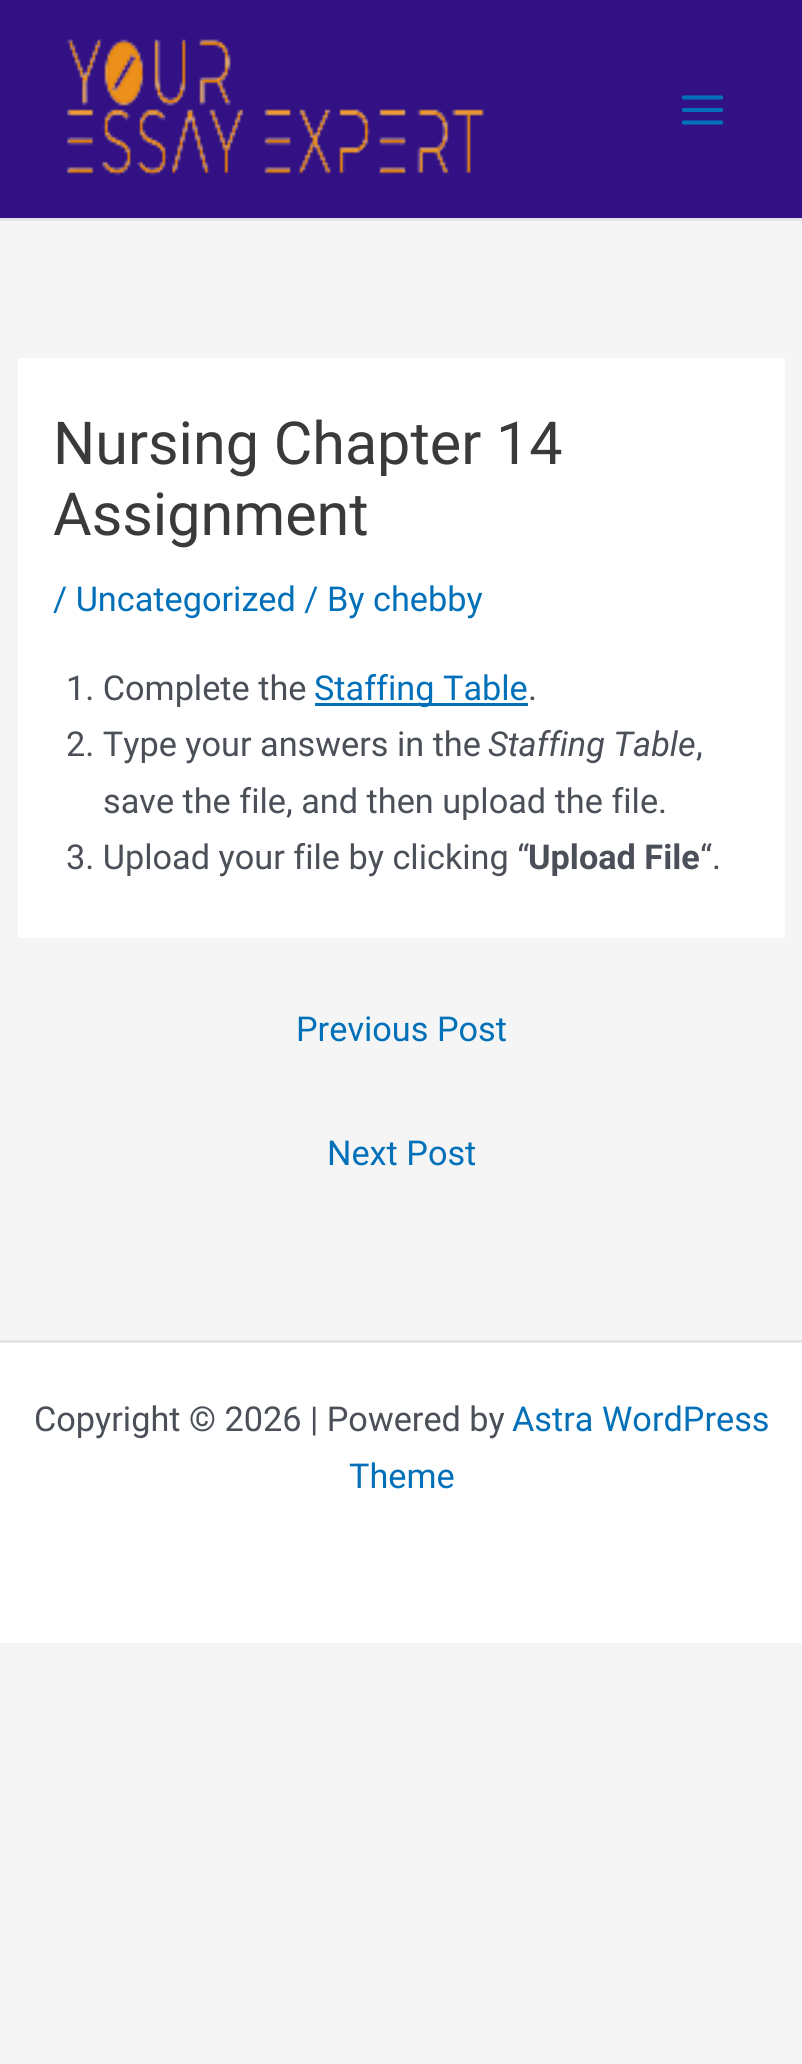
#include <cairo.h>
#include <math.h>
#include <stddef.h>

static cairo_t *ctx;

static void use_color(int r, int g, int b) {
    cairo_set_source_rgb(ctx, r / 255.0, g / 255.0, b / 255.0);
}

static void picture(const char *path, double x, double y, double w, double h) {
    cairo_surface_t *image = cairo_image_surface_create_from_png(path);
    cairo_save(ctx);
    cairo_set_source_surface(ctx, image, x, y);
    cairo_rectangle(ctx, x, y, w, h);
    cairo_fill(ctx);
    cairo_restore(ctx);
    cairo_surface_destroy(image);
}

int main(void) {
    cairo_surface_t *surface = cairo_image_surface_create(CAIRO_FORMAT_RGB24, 802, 2064);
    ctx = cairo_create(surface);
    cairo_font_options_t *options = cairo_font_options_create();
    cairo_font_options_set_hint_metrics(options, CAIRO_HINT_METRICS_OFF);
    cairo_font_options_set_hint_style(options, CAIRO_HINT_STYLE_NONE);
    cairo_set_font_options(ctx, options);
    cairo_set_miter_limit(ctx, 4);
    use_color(245, 245, 245);
    cairo_paint(ctx);
    use_color(50, 17, 132);
    cairo_rectangle(ctx, 0, 0, 802, 218);
    cairo_fill(ctx);
    use_color(229, 229, 229);
    cairo_rectangle(ctx, 0, 218, 802, 3);
    cairo_fill(ctx);
    picture("img1.png", 66, 39, 419, 137);
    picture("img2.png", 681, 95, 43, 30);
    use_color(255, 255, 255);
    cairo_rectangle(ctx, 18, 358, 767, 580);
    cairo_fill(ctx);
    cairo_select_font_face(ctx, "Roboto", CAIRO_FONT_SLANT_NORMAL, CAIRO_FONT_WEIGHT_NORMAL);
    cairo_set_font_size(ctx, 59.25);
    use_color(58, 58, 58);
    cairo_move_to(ctx, 53, 464);
    cairo_show_text(ctx, "Nursing Chapter 14");
    cairo_move_to(ctx, 53, 535);
    cairo_show_text(ctx, "Assignment");
    cairo_set_font_size(ctx, 34.25);
    use_color(1, 112, 185);
    cairo_move_to(ctx, 53, 611);
    cairo_show_text(ctx, "/ Uncategorized / By chebby");
    use_color(75, 79, 88);
    cairo_move_to(ctx, 66, 700);
    cairo_show_text(ctx, "1. Complete the");
    use_color(1, 112, 185);
    cairo_rectangle(ctx, 315, 703, 213, 3);
    cairo_fill(ctx);
    cairo_move_to(ctx, 314, 700);
    cairo_show_text(ctx, "Staffing Table");
    use_color(75, 79, 88);
    cairo_move_to(ctx, 528, 700);
    cairo_show_text(ctx, ".");
    cairo_move_to(ctx, 66, 756);
    cairo_show_text(ctx, "2. Type your answers in the");
    cairo_select_font_face(ctx, "Roboto", CAIRO_FONT_SLANT_ITALIC, CAIRO_FONT_WEIGHT_NORMAL);
    cairo_move_to(ctx, 488, 756);
    cairo_show_text(ctx, "Staffing Table");
    cairo_select_font_face(ctx, "Roboto", CAIRO_FONT_SLANT_NORMAL, CAIRO_FONT_WEIGHT_NORMAL);
    cairo_move_to(ctx, 696, 756);
    cairo_show_text(ctx, ",");
    cairo_move_to(ctx, 103, 813);
    cairo_show_text(ctx, "save the file, and then upload the file.");
    cairo_move_to(ctx, 66, 869);
    cairo_show_text(ctx, "3. Upload your file by clicking “");
    cairo_select_font_face(ctx, "Roboto", CAIRO_FONT_SLANT_NORMAL, CAIRO_FONT_WEIGHT_BOLD);
    cairo_move_to(ctx, 528, 869);
    cairo_show_text(ctx, "Upload File");
    cairo_select_font_face(ctx, "Roboto", CAIRO_FONT_SLANT_NORMAL, CAIRO_FONT_WEIGHT_NORMAL);
    cairo_move_to(ctx, 700, 869);
    cairo_show_text(ctx, "“.");
    use_color(1, 112, 185);
    cairo_move_to(ctx, 296, 1041);
    cairo_show_text(ctx, "Previous Post");
    cairo_move_to(ctx, 327, 1165);
    cairo_show_text(ctx, "Next Post");
    use_color(255, 255, 255);
    cairo_rectangle(ctx, 0, 1343, 802, 300);
    cairo_fill(ctx);
    use_color(229, 229, 229);
    cairo_rectangle(ctx, 0, 1340, 802, 3);
    cairo_fill(ctx);
    use_color(75, 79, 88);
    cairo_move_to(ctx, 34, 1431);
    cairo_show_text(ctx, "Copyright © 2026 | Powered by");
    use_color(1, 112, 185);
    cairo_move_to(ctx, 512, 1431);
    cairo_show_text(ctx, "Astra WordPress");
    cairo_move_to(ctx, 349, 1488);
    cairo_show_text(ctx, "Theme");
    cairo_surface_write_to_png(surface, "result.png");
    cairo_font_options_destroy(options);
    cairo_destroy(ctx);
    cairo_surface_destroy(surface);
    return 0;
}
